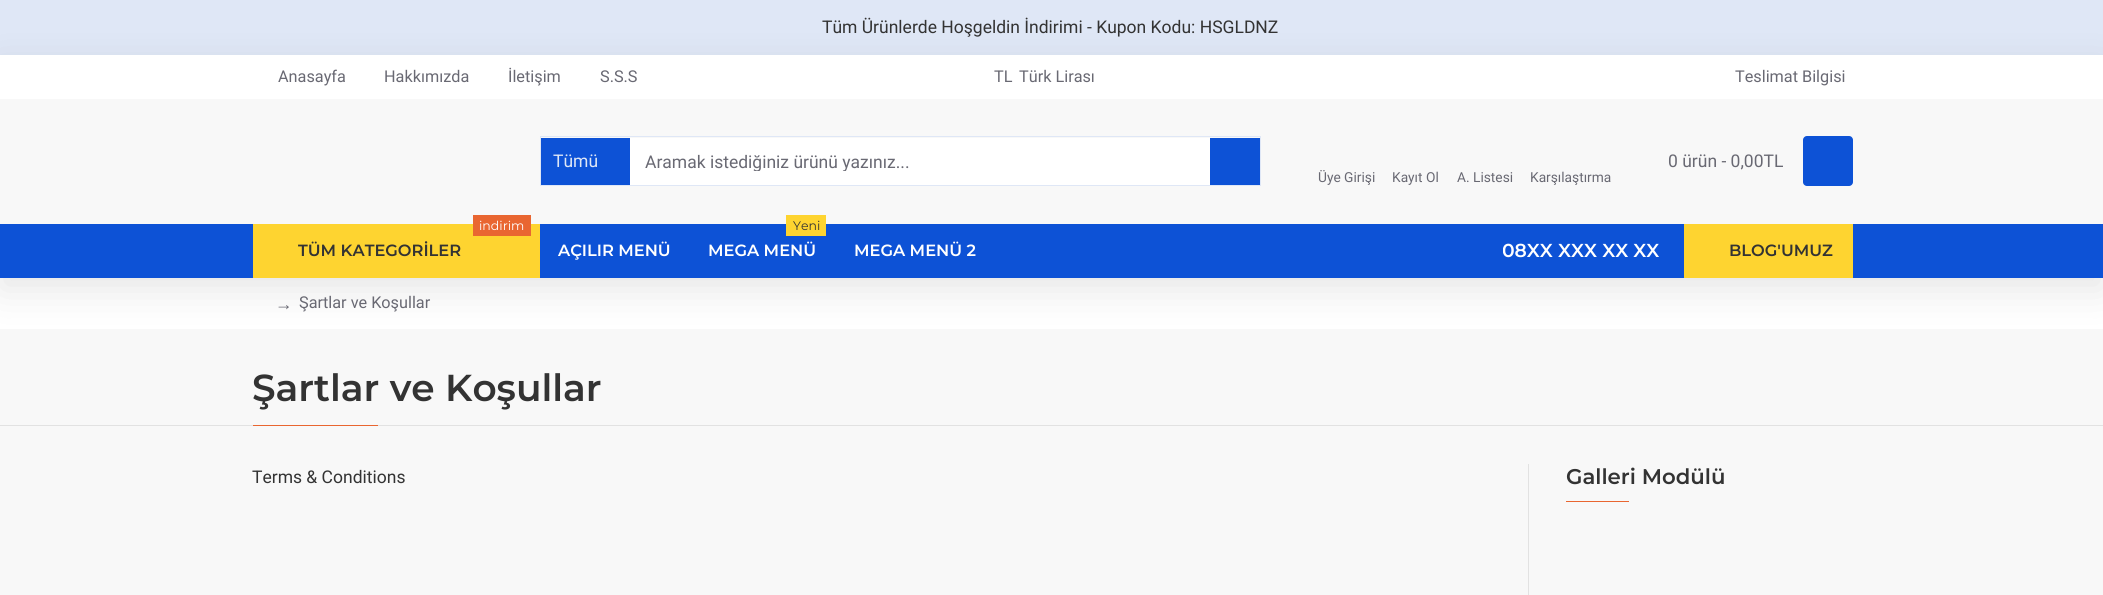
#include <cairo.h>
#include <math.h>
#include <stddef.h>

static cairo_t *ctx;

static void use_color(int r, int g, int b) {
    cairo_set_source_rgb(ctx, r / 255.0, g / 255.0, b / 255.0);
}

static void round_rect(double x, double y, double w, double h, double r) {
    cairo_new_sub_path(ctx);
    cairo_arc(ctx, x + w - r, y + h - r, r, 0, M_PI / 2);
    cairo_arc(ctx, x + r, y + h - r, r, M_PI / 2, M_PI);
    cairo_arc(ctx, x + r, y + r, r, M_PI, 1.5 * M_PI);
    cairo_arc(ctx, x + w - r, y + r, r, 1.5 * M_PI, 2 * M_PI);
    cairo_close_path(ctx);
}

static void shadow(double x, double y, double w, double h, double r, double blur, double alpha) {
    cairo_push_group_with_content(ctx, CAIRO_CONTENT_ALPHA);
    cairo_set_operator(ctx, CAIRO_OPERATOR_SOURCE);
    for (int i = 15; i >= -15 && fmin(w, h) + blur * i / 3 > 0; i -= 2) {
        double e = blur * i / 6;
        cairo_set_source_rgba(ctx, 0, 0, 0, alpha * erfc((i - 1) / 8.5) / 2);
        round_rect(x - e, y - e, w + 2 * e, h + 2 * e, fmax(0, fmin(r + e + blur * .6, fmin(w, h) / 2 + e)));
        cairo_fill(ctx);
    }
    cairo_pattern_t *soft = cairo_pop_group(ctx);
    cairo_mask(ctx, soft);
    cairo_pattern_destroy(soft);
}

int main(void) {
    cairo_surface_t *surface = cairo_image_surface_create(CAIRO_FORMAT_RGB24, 2103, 595);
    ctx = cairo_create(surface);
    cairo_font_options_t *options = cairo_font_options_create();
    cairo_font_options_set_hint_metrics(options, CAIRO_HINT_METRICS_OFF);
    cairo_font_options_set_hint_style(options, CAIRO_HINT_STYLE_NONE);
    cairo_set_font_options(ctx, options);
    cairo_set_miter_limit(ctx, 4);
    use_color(248, 248, 248);
    cairo_paint(ctx);
    use_color(223, 231, 246);
    cairo_rectangle(ctx, 0, 0, 2103, 55);
    cairo_fill(ctx);
    cairo_select_font_face(ctx, "Roboto", CAIRO_FONT_SLANT_NORMAL, CAIRO_FONT_WEIGHT_NORMAL);
    cairo_set_font_size(ctx, 17.5);
    use_color(51, 51, 51);
    cairo_move_to(ctx, 822, 33);
    cairo_show_text(ctx, "Tüm Ürünlerde Hoşgeldin İndirimi - Kupon Kodu: HSGLDNZ");
    use_color(255, 255, 255);
    cairo_rectangle(ctx, 0, 278, 2103, 51);
    cairo_fill(ctx);
    cairo_save(ctx);
    cairo_set_fill_rule(ctx, CAIRO_FILL_RULE_EVEN_ODD);
    cairo_new_path(ctx);
    cairo_move_to(ctx, 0, 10);
    cairo_line_to(ctx, 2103, 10);
    cairo_line_to(ctx, 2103, 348);
    cairo_line_to(ctx, 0, 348);
    cairo_close_path(ctx);
    cairo_move_to(ctx, 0, 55);
    cairo_line_to(ctx, 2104, 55);
    cairo_line_to(ctx, 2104, 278);
    cairo_line_to(ctx, 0, 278);
    cairo_close_path(ctx);
    cairo_clip(ctx);
    use_color(0, 0, 0);
    shadow(0, 68, 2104, 222, 0, 19, 0.1);
    cairo_restore(ctx);
    cairo_rectangle(ctx, 0, 55, 2103, 44);
    cairo_fill(ctx);
    cairo_set_font_size(ctx, 16.25);
    use_color(105, 105, 115);
    cairo_move_to(ctx, 278, 82);
    cairo_show_text(ctx, "Anasayfa");
    cairo_move_to(ctx, 384, 82);
    cairo_show_text(ctx, "Hakkımızda");
    cairo_move_to(ctx, 508, 82);
    cairo_show_text(ctx, "İletişim");
    cairo_move_to(ctx, 600, 82);
    cairo_show_text(ctx, "S.S.S");
    cairo_move_to(ctx, 994, 82);
    cairo_show_text(ctx, "TL");
    cairo_move_to(ctx, 1019, 82);
    cairo_show_text(ctx, "Türk Lirası");
    cairo_move_to(ctx, 1735, 82);
    cairo_show_text(ctx, "Teslimat Bilgisi");
    cairo_rectangle(ctx, 540.5, 136.5, 720, 49);
    use_color(223, 231, 246);
    cairo_set_line_width(ctx, 1);
    cairo_stroke(ctx);
    use_color(13, 82, 214);
    cairo_rectangle(ctx, 541, 138, 89, 47);
    cairo_fill(ctx);
    cairo_set_font_size(ctx, 17.5);
    use_color(223, 231, 246);
    cairo_move_to(ctx, 553, 167);
    cairo_show_text(ctx, "Tümü");
    use_color(255, 255, 255);
    cairo_rectangle(ctx, 630, 138, 580, 47);
    cairo_fill(ctx);
    cairo_save(ctx);
    cairo_rectangle(ctx, 645, 151, 550, 20);
    cairo_clip(ctx);
    use_color(105, 105, 115);
    cairo_move_to(ctx, 645, 168);
    cairo_show_text(ctx, "Aramak istediğiniz ürünü yazınız...");
    cairo_restore(ctx);
    use_color(13, 82, 214);
    cairo_rectangle(ctx, 1210, 138, 50, 47);
    cairo_fill(ctx);
    use_color(105, 105, 115);
    cairo_move_to(ctx, 1668, 167);
    cairo_show_text(ctx, "0 ürün - 0,00TL");
    use_color(13, 82, 214);
    round_rect(1803, 136, 50, 50, 4);
    cairo_fill(ctx);
    cairo_set_font_size(ctx, 13.75);
    use_color(105, 105, 115);
    cairo_move_to(ctx, 1318, 182);
    cairo_show_text(ctx, "Üye Girişi");
    cairo_move_to(ctx, 1392, 182);
    cairo_show_text(ctx, "Kayıt Ol");
    cairo_move_to(ctx, 1457, 182);
    cairo_show_text(ctx, "A. Listesi");
    cairo_move_to(ctx, 1530, 182);
    cairo_show_text(ctx, "Karşılaştırma");
    use_color(13, 82, 214);
    cairo_rectangle(ctx, 0, 224, 2103, 54);
    cairo_fill(ctx);
    use_color(254, 212, 48);
    cairo_rectangle(ctx, 253, 224, 287, 54);
    cairo_fill(ctx);
    use_color(233, 102, 49);
    cairo_rectangle(ctx, 473, 215, 58, 21);
    cairo_fill(ctx);
    cairo_select_font_face(ctx, "Montserrat", CAIRO_FONT_SLANT_NORMAL, CAIRO_FONT_WEIGHT_NORMAL);
    cairo_set_font_size(ctx, 12.5);
    use_color(255, 255, 255);
    cairo_move_to(ctx, 479, 230);
    cairo_show_text(ctx, "indirim");
    cairo_save(ctx);
    cairo_rectangle(ctx, 298, 239, 223, 24);
    cairo_clip(ctx);
    cairo_select_font_face(ctx, "Montserrat SemiBold", CAIRO_FONT_SLANT_NORMAL, CAIRO_FONT_WEIGHT_NORMAL);
    cairo_set_font_size(ctx, 16.25);
    use_color(51, 51, 51);
    cairo_move_to(ctx, 298, 256);
    cairo_show_text(ctx, "TÜM KATEGORİLER");
    cairo_restore(ctx);
    cairo_select_font_face(ctx, "Montserrat SemiBold", CAIRO_FONT_SLANT_NORMAL, CAIRO_FONT_WEIGHT_NORMAL);
    cairo_set_font_size(ctx, 16.25);
    cairo_move_to(ctx, 558, 256);
    cairo_show_text(ctx, "AÇILIR MENÜ");
    use_color(254, 212, 48);
    cairo_rectangle(ctx, 786, 215, 40, 21);
    cairo_fill(ctx);
    cairo_select_font_face(ctx, "Montserrat", CAIRO_FONT_SLANT_NORMAL, CAIRO_FONT_WEIGHT_NORMAL);
    cairo_set_font_size(ctx, 12.5);
    use_color(51, 51, 51);
    cairo_move_to(ctx, 793, 230);
    cairo_show_text(ctx, "Yeni");
    cairo_select_font_face(ctx, "Montserrat SemiBold", CAIRO_FONT_SLANT_NORMAL, CAIRO_FONT_WEIGHT_NORMAL);
    cairo_set_font_size(ctx, 16.25);
    use_color(255, 255, 255);
    cairo_move_to(ctx, 708, 256);
    cairo_show_text(ctx, "MEGA MENÜ");
    cairo_move_to(ctx, 854, 256);
    cairo_show_text(ctx, "MEGA MENÜ 2");
    cairo_save(ctx);
    cairo_rectangle(ctx, 1503, 236, 156, 29);
    cairo_clip(ctx);
    cairo_set_font_size(ctx, 18.75);
    cairo_move_to(ctx, 1502, 257);
    cairo_show_text(ctx, "08XX XXX XX XX");
    cairo_restore(ctx);
    use_color(254, 212, 48);
    cairo_rectangle(ctx, 1684, 224, 169, 54);
    cairo_fill(ctx);
    use_color(51, 51, 51);
    cairo_move_to(ctx, 1729, 256);
    cairo_show_text(ctx, "BLOG'UMUZ");
    cairo_select_font_face(ctx, "Liberation Serif", CAIRO_FONT_SLANT_NORMAL, CAIRO_FONT_WEIGHT_NORMAL);
    cairo_set_font_size(ctx, 17.5);
    use_color(105, 105, 115);
    cairo_move_to(ctx, 275, 310);
    cairo_show_text(ctx, "→");
    cairo_select_font_face(ctx, "Roboto", CAIRO_FONT_SLANT_NORMAL, CAIRO_FONT_WEIGHT_NORMAL);
    cairo_set_font_size(ctx, 16.25);
    cairo_move_to(ctx, 299, 308);
    cairo_show_text(ctx, "Şartlar ve Koşullar");
    use_color(226, 226, 226);
    cairo_rectangle(ctx, 0, 425, 2103, 1);
    cairo_fill(ctx);
    cairo_select_font_face(ctx, "Montserrat SemiBold", CAIRO_FONT_SLANT_NORMAL, CAIRO_FONT_WEIGHT_NORMAL);
    cairo_set_font_size(ctx, 37.5);
    use_color(51, 51, 51);
    cairo_move_to(ctx, 252, 401);
    cairo_show_text(ctx, "Şartlar ve Koşullar");
    use_color(233, 102, 49);
    cairo_rectangle(ctx, 253, 425, 125, 1);
    cairo_fill(ctx);
    cairo_select_font_face(ctx, "Roboto", CAIRO_FONT_SLANT_NORMAL, CAIRO_FONT_WEIGHT_NORMAL);
    cairo_set_font_size(ctx, 17.5);
    use_color(51, 51, 51);
    cairo_move_to(ctx, 252, 483);
    cairo_show_text(ctx, "Terms & Conditions");
    use_color(226, 226, 226);
    cairo_rectangle(ctx, 1528, 464, 1, 131);
    cairo_fill(ctx);
    cairo_select_font_face(ctx, "Montserrat SemiBold", CAIRO_FONT_SLANT_NORMAL, CAIRO_FONT_WEIGHT_NORMAL);
    cairo_set_font_size(ctx, 21.25);
    use_color(51, 51, 51);
    cairo_move_to(ctx, 1566, 484);
    cairo_show_text(ctx, "Galleri Modülü");
    use_color(233, 102, 49);
    cairo_rectangle(ctx, 1566, 501, 63, 1);
    cairo_fill(ctx);
    cairo_surface_write_to_png(surface, "result.png");
    cairo_font_options_destroy(options);
    cairo_destroy(ctx);
    cairo_surface_destroy(surface);
    return 0;
}
